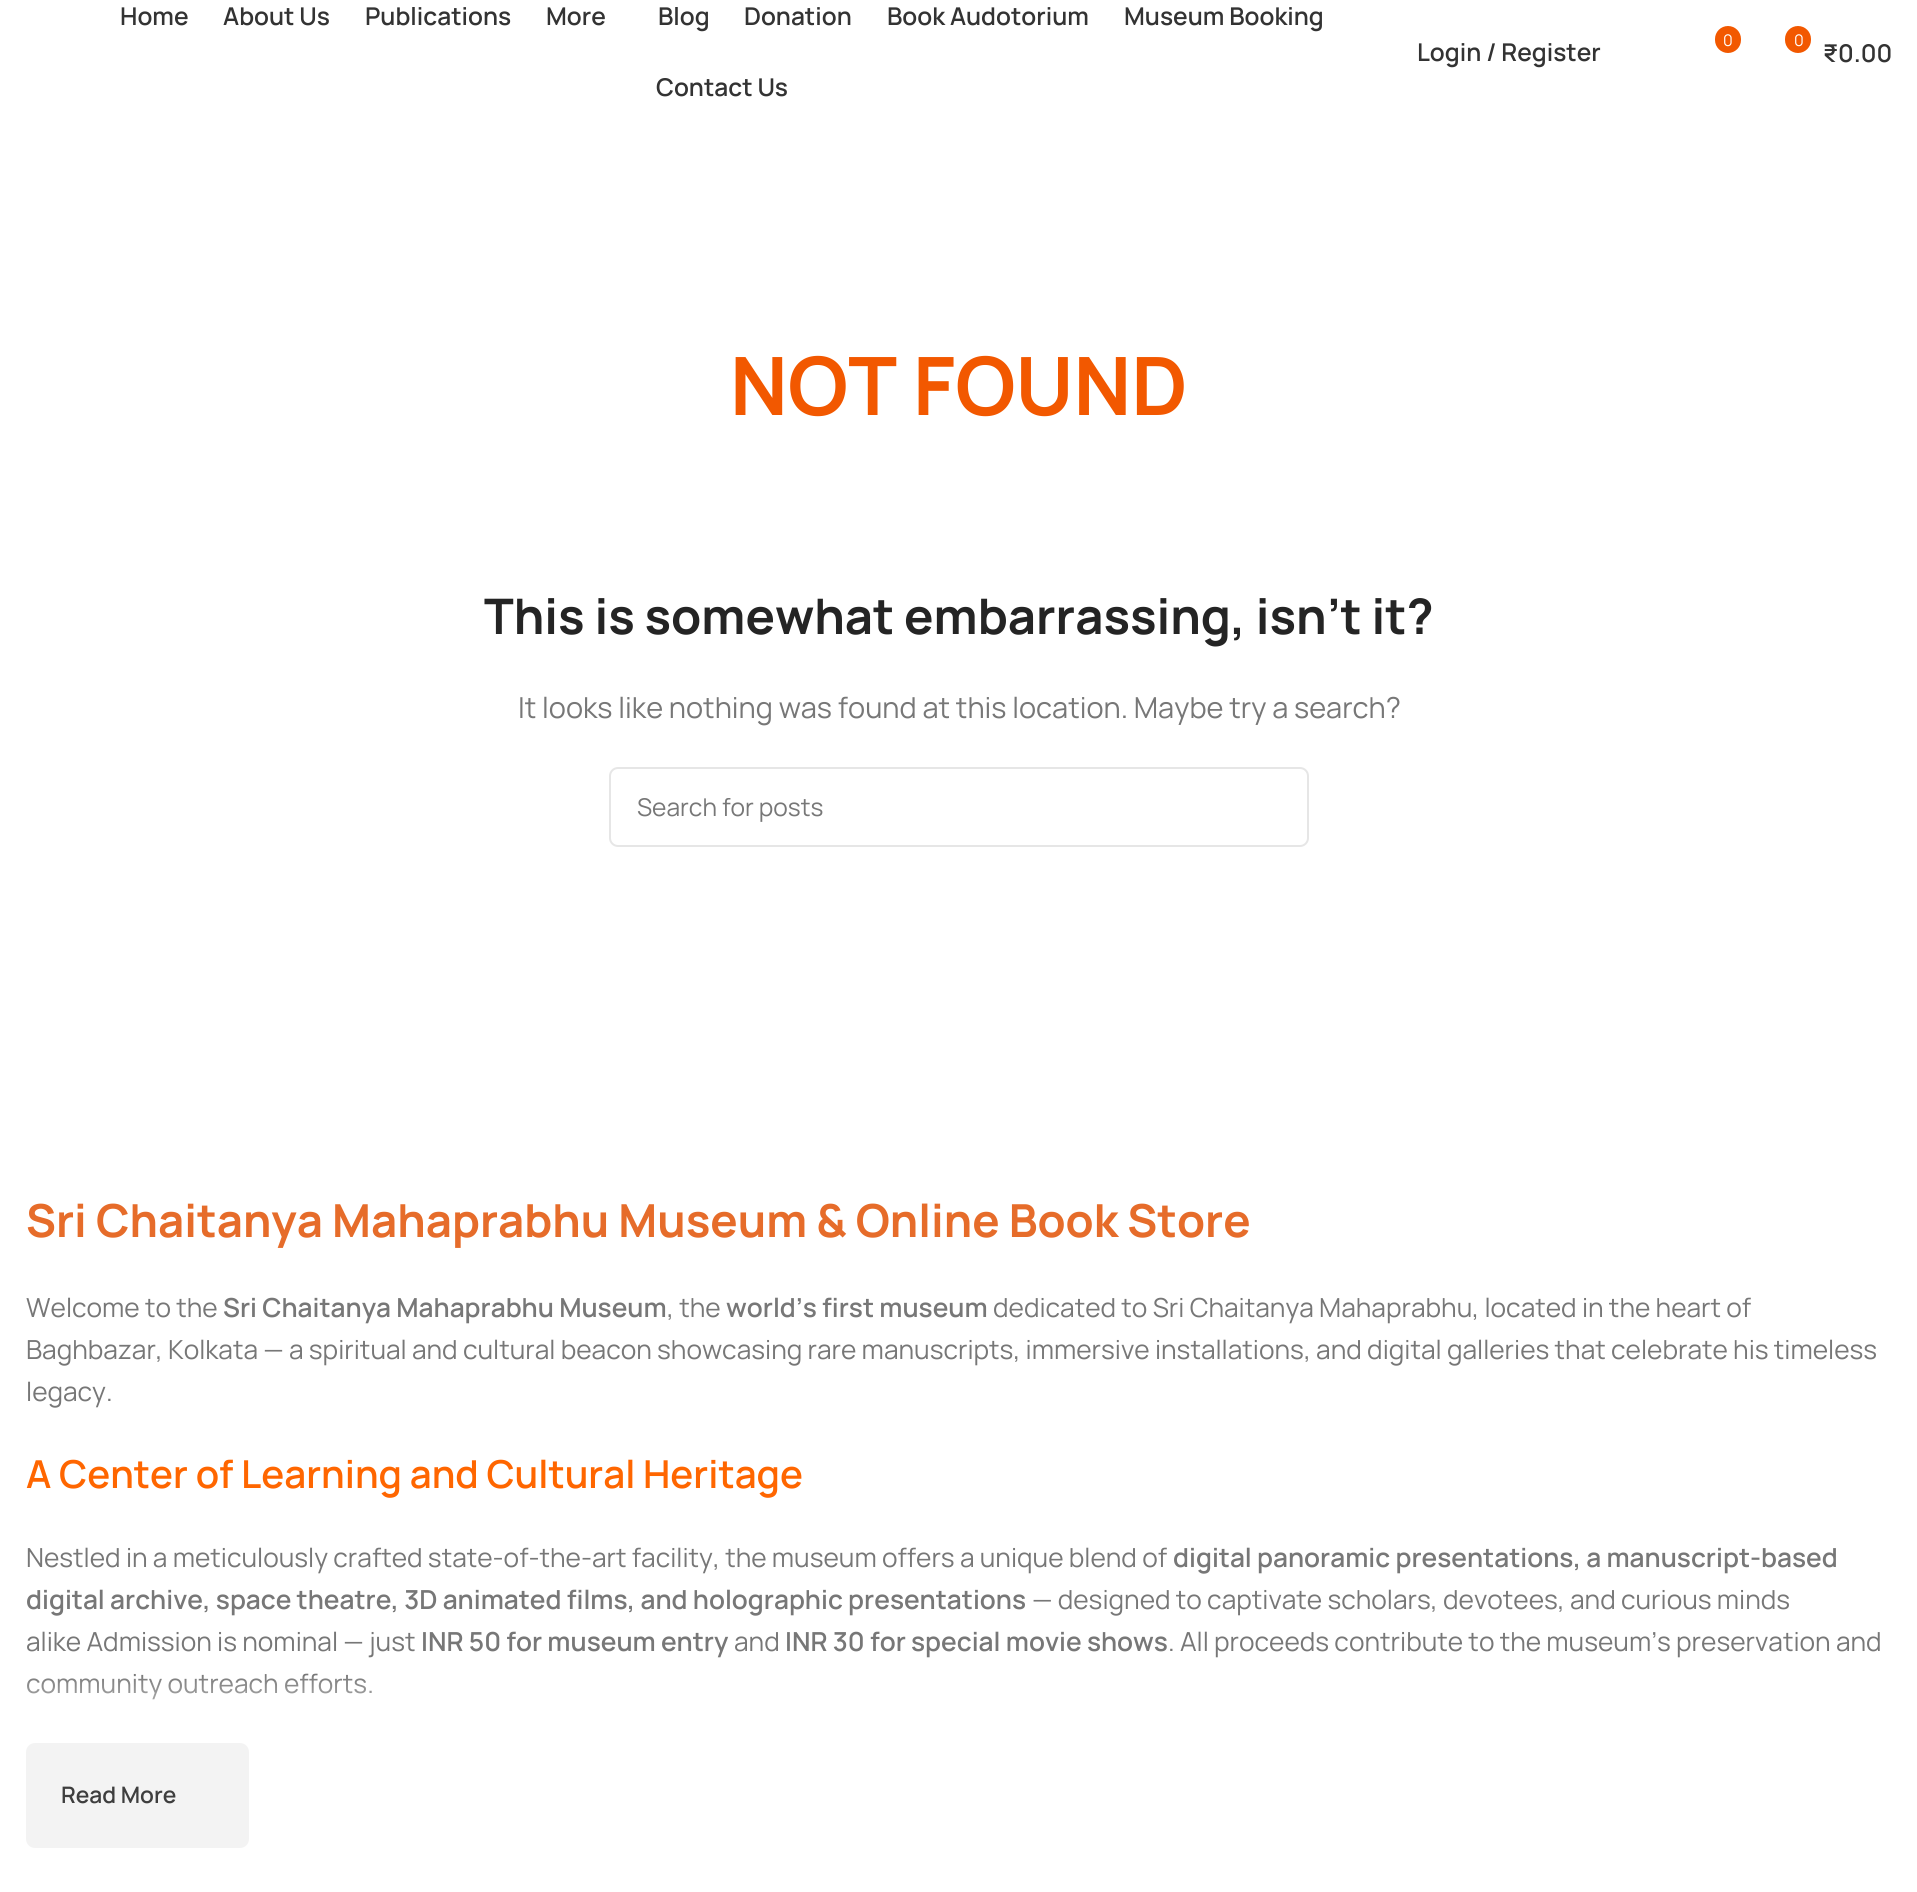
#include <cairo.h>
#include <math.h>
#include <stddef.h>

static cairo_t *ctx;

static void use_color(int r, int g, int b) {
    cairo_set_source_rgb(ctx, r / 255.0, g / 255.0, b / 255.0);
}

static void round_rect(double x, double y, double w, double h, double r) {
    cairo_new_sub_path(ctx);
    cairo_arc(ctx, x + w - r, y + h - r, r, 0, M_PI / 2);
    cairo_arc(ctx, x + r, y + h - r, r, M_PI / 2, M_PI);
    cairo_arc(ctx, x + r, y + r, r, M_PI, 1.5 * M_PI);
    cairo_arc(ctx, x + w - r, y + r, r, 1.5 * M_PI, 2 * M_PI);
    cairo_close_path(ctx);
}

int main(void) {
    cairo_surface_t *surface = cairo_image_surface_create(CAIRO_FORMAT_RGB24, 1917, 1892);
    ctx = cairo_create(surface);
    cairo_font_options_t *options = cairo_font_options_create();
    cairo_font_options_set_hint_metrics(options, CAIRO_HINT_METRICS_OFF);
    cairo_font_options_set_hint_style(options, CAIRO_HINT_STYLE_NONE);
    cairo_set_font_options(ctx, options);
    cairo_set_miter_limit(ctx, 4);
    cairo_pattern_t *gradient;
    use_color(255, 255, 255);
    cairo_paint(ctx);
    cairo_select_font_face(ctx, "Manrope SemiBold", CAIRO_FONT_SLANT_NORMAL, CAIRO_FONT_WEIGHT_NORMAL);
    cairo_set_font_size(ctx, 24.5);
    use_color(51, 51, 51);
    cairo_move_to(ctx, 120, 25);
    cairo_show_text(ctx, "Home");
    cairo_move_to(ctx, 223, 25);
    cairo_show_text(ctx, "About Us");
    cairo_move_to(ctx, 365, 25);
    cairo_show_text(ctx, "Publications");
    cairo_move_to(ctx, 546, 25);
    cairo_show_text(ctx, "More");
    cairo_move_to(ctx, 658, 25);
    cairo_show_text(ctx, "Blog");
    cairo_move_to(ctx, 744, 25);
    cairo_show_text(ctx, "Donation");
    cairo_move_to(ctx, 887, 25);
    cairo_show_text(ctx, "Book Audotorium");
    cairo_move_to(ctx, 1124, 25);
    cairo_show_text(ctx, "Museum Booking");
    cairo_move_to(ctx, 656, 96);
    cairo_show_text(ctx, "Contact Us");
    cairo_move_to(ctx, 1417, 61);
    cairo_show_text(ctx, "Login / Register");
    use_color(242, 88, 0);
    round_rect(1715, 26, 26, 27, 13);
    cairo_fill(ctx);
    cairo_select_font_face(ctx, "Manrope", CAIRO_FONT_SLANT_NORMAL, CAIRO_FONT_WEIGHT_NORMAL);
    cairo_set_font_size(ctx, 16);
    use_color(255, 255, 255);
    cairo_move_to(ctx, 1723, 46);
    cairo_show_text(ctx, "0");
    use_color(242, 88, 0);
    round_rect(1785, 26, 26, 27, 13);
    cairo_fill(ctx);
    use_color(255, 255, 255);
    cairo_move_to(ctx, 1794, 46);
    cairo_show_text(ctx, "0");
    cairo_select_font_face(ctx, "Manrope SemiBold", CAIRO_FONT_SLANT_NORMAL, CAIRO_FONT_WEIGHT_NORMAL);
    cairo_set_font_size(ctx, 24.5);
    use_color(51, 51, 51);
    cairo_move_to(ctx, 1823, 62);
    cairo_show_text(ctx, "₹0.00");
    cairo_select_font_face(ctx, "Manrope", CAIRO_FONT_SLANT_NORMAL, CAIRO_FONT_WEIGHT_BOLD);
    cairo_set_font_size(ctx, 80.5);
    use_color(242, 88, 0);
    cairo_move_to(ctx, 730, 415);
    cairo_show_text(ctx, "NOT FOUND");
    cairo_set_font_size(ctx, 49);
    use_color(36, 36, 36);
    cairo_move_to(ctx, 484, 634);
    cairo_show_text(ctx, "This is somewhat embarrassing, isn’t it?");
    cairo_select_font_face(ctx, "Manrope", CAIRO_FONT_SLANT_NORMAL, CAIRO_FONT_WEIGHT_NORMAL);
    cairo_set_font_size(ctx, 28.9);
    use_color(119, 119, 119);
    cairo_move_to(ctx, 518, 718);
    cairo_show_text(ctx, "It looks like nothing was found at this location. Maybe try a search?");
    round_rect(610, 768, 698, 78, 8);
    use_color(230, 230, 230);
    cairo_stroke(ctx);
    cairo_set_font_size(ctx, 24.5);
    use_color(119, 119, 119);
    cairo_move_to(ctx, 637, 816);
    cairo_show_text(ctx, "Search for posts");
    cairo_select_font_face(ctx, "Manrope", CAIRO_FONT_SLANT_NORMAL, CAIRO_FONT_WEIGHT_BOLD);
    cairo_set_font_size(ctx, 45.5);
    use_color(230, 108, 42);
    cairo_move_to(ctx, 26, 1237);
    cairo_show_text(ctx, "Sri Chaitanya Mahaprabhu Museum & Online Book Store");
    cairo_select_font_face(ctx, "Manrope", CAIRO_FONT_SLANT_NORMAL, CAIRO_FONT_WEIGHT_NORMAL);
    cairo_set_font_size(ctx, 26.25);
    use_color(119, 119, 119);
    cairo_move_to(ctx, 26, 1317);
    cairo_show_text(ctx, "Welcome to the");
    cairo_select_font_face(ctx, "Manrope SemiBold", CAIRO_FONT_SLANT_NORMAL, CAIRO_FONT_WEIGHT_NORMAL);
    cairo_move_to(ctx, 223, 1317);
    cairo_show_text(ctx, "Sri Chaitanya Mahaprabhu Museum");
    cairo_select_font_face(ctx, "Manrope", CAIRO_FONT_SLANT_NORMAL, CAIRO_FONT_WEIGHT_NORMAL);
    cairo_move_to(ctx, 667, 1317);
    cairo_show_text(ctx, ", the");
    cairo_select_font_face(ctx, "Manrope SemiBold", CAIRO_FONT_SLANT_NORMAL, CAIRO_FONT_WEIGHT_NORMAL);
    cairo_move_to(ctx, 726, 1317);
    cairo_show_text(ctx, "world’s first museum");
    cairo_select_font_face(ctx, "Manrope", CAIRO_FONT_SLANT_NORMAL, CAIRO_FONT_WEIGHT_NORMAL);
    cairo_move_to(ctx, 993, 1317);
    cairo_show_text(ctx, "dedicated to Sri Chaitanya Mahaprabhu, located in the heart of");
    cairo_move_to(ctx, 26, 1359);
    cairo_show_text(ctx, "Baghbazar, Kolkata — a spiritual and cultural beacon showcasing rare manuscripts, immersive installations, and digital galleries that celebrate his timeless");
    cairo_move_to(ctx, 26, 1401);
    cairo_show_text(ctx, "legacy.");
    cairo_select_font_face(ctx, "Manrope SemiBold", CAIRO_FONT_SLANT_NORMAL, CAIRO_FONT_WEIGHT_NORMAL);
    cairo_set_font_size(ctx, 38.5);
    use_color(255, 102, 0);
    cairo_move_to(ctx, 26, 1488);
    cairo_show_text(ctx, "A Center of Learning and Cultural Heritage");
    cairo_select_font_face(ctx, "Manrope", CAIRO_FONT_SLANT_NORMAL, CAIRO_FONT_WEIGHT_NORMAL);
    cairo_set_font_size(ctx, 26.25);
    use_color(119, 119, 119);
    cairo_move_to(ctx, 26, 1567);
    cairo_show_text(ctx, "Nestled in a meticulously crafted state-of-the-art facility, the museum offers a unique blend of");
    cairo_select_font_face(ctx, "Manrope SemiBold", CAIRO_FONT_SLANT_NORMAL, CAIRO_FONT_WEIGHT_NORMAL);
    cairo_move_to(ctx, 1173, 1567);
    cairo_show_text(ctx, "digital panoramic presentations, a manuscript-based");
    cairo_move_to(ctx, 26, 1609);
    cairo_show_text(ctx, "digital archive, space theatre, 3D animated films, and holographic presentations");
    cairo_select_font_face(ctx, "Manrope", CAIRO_FONT_SLANT_NORMAL, CAIRO_FONT_WEIGHT_NORMAL);
    cairo_move_to(ctx, 1032, 1609);
    cairo_show_text(ctx, "— designed to captivate scholars, devotees, and curious minds");
    cairo_move_to(ctx, 26, 1651);
    cairo_show_text(ctx, "alike Admission is nominal — just");
    cairo_select_font_face(ctx, "Manrope SemiBold", CAIRO_FONT_SLANT_NORMAL, CAIRO_FONT_WEIGHT_NORMAL);
    cairo_move_to(ctx, 421, 1651);
    cairo_show_text(ctx, "INR 50 for museum entry");
    cairo_select_font_face(ctx, "Manrope", CAIRO_FONT_SLANT_NORMAL, CAIRO_FONT_WEIGHT_NORMAL);
    cairo_move_to(ctx, 734, 1651);
    cairo_show_text(ctx, "and");
    cairo_select_font_face(ctx, "Manrope SemiBold", CAIRO_FONT_SLANT_NORMAL, CAIRO_FONT_WEIGHT_NORMAL);
    cairo_move_to(ctx, 785, 1651);
    cairo_show_text(ctx, "INR 30 for special movie shows");
    cairo_select_font_face(ctx, "Manrope", CAIRO_FONT_SLANT_NORMAL, CAIRO_FONT_WEIGHT_NORMAL);
    cairo_move_to(ctx, 1168, 1651);
    cairo_show_text(ctx, ". All proceeds contribute to the museum’s preservation and");
    cairo_move_to(ctx, 26, 1693);
    cairo_show_text(ctx, "community outreach efforts.");
    use_color(243, 243, 243);
    round_rect(26, 1743, 223, 105, 9);
    cairo_fill(ctx);
    cairo_select_font_face(ctx, "Manrope SemiBold", CAIRO_FONT_SLANT_NORMAL, CAIRO_FONT_WEIGHT_NORMAL);
    cairo_set_font_size(ctx, 22.75);
    use_color(62, 62, 62);
    cairo_move_to(ctx, 61, 1803);
    cairo_show_text(ctx, "Read More");
    gradient = cairo_pattern_create_linear(959, 1673, 959, 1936);
    cairo_pattern_add_color_stop_rgba(gradient, 0, 1, 1, 1, 0);
    cairo_pattern_add_color_stop_rgba(gradient, 0.3, 1, 1, 1, 1);
    cairo_set_source(ctx, gradient);
    cairo_pattern_destroy(gradient);
    cairo_rectangle(ctx, 27, 1675, 345, 25);
    cairo_fill(ctx);
    cairo_surface_write_to_png(surface, "result.png");
    cairo_font_options_destroy(options);
    cairo_destroy(ctx);
    cairo_surface_destroy(surface);
    return 0;
}
